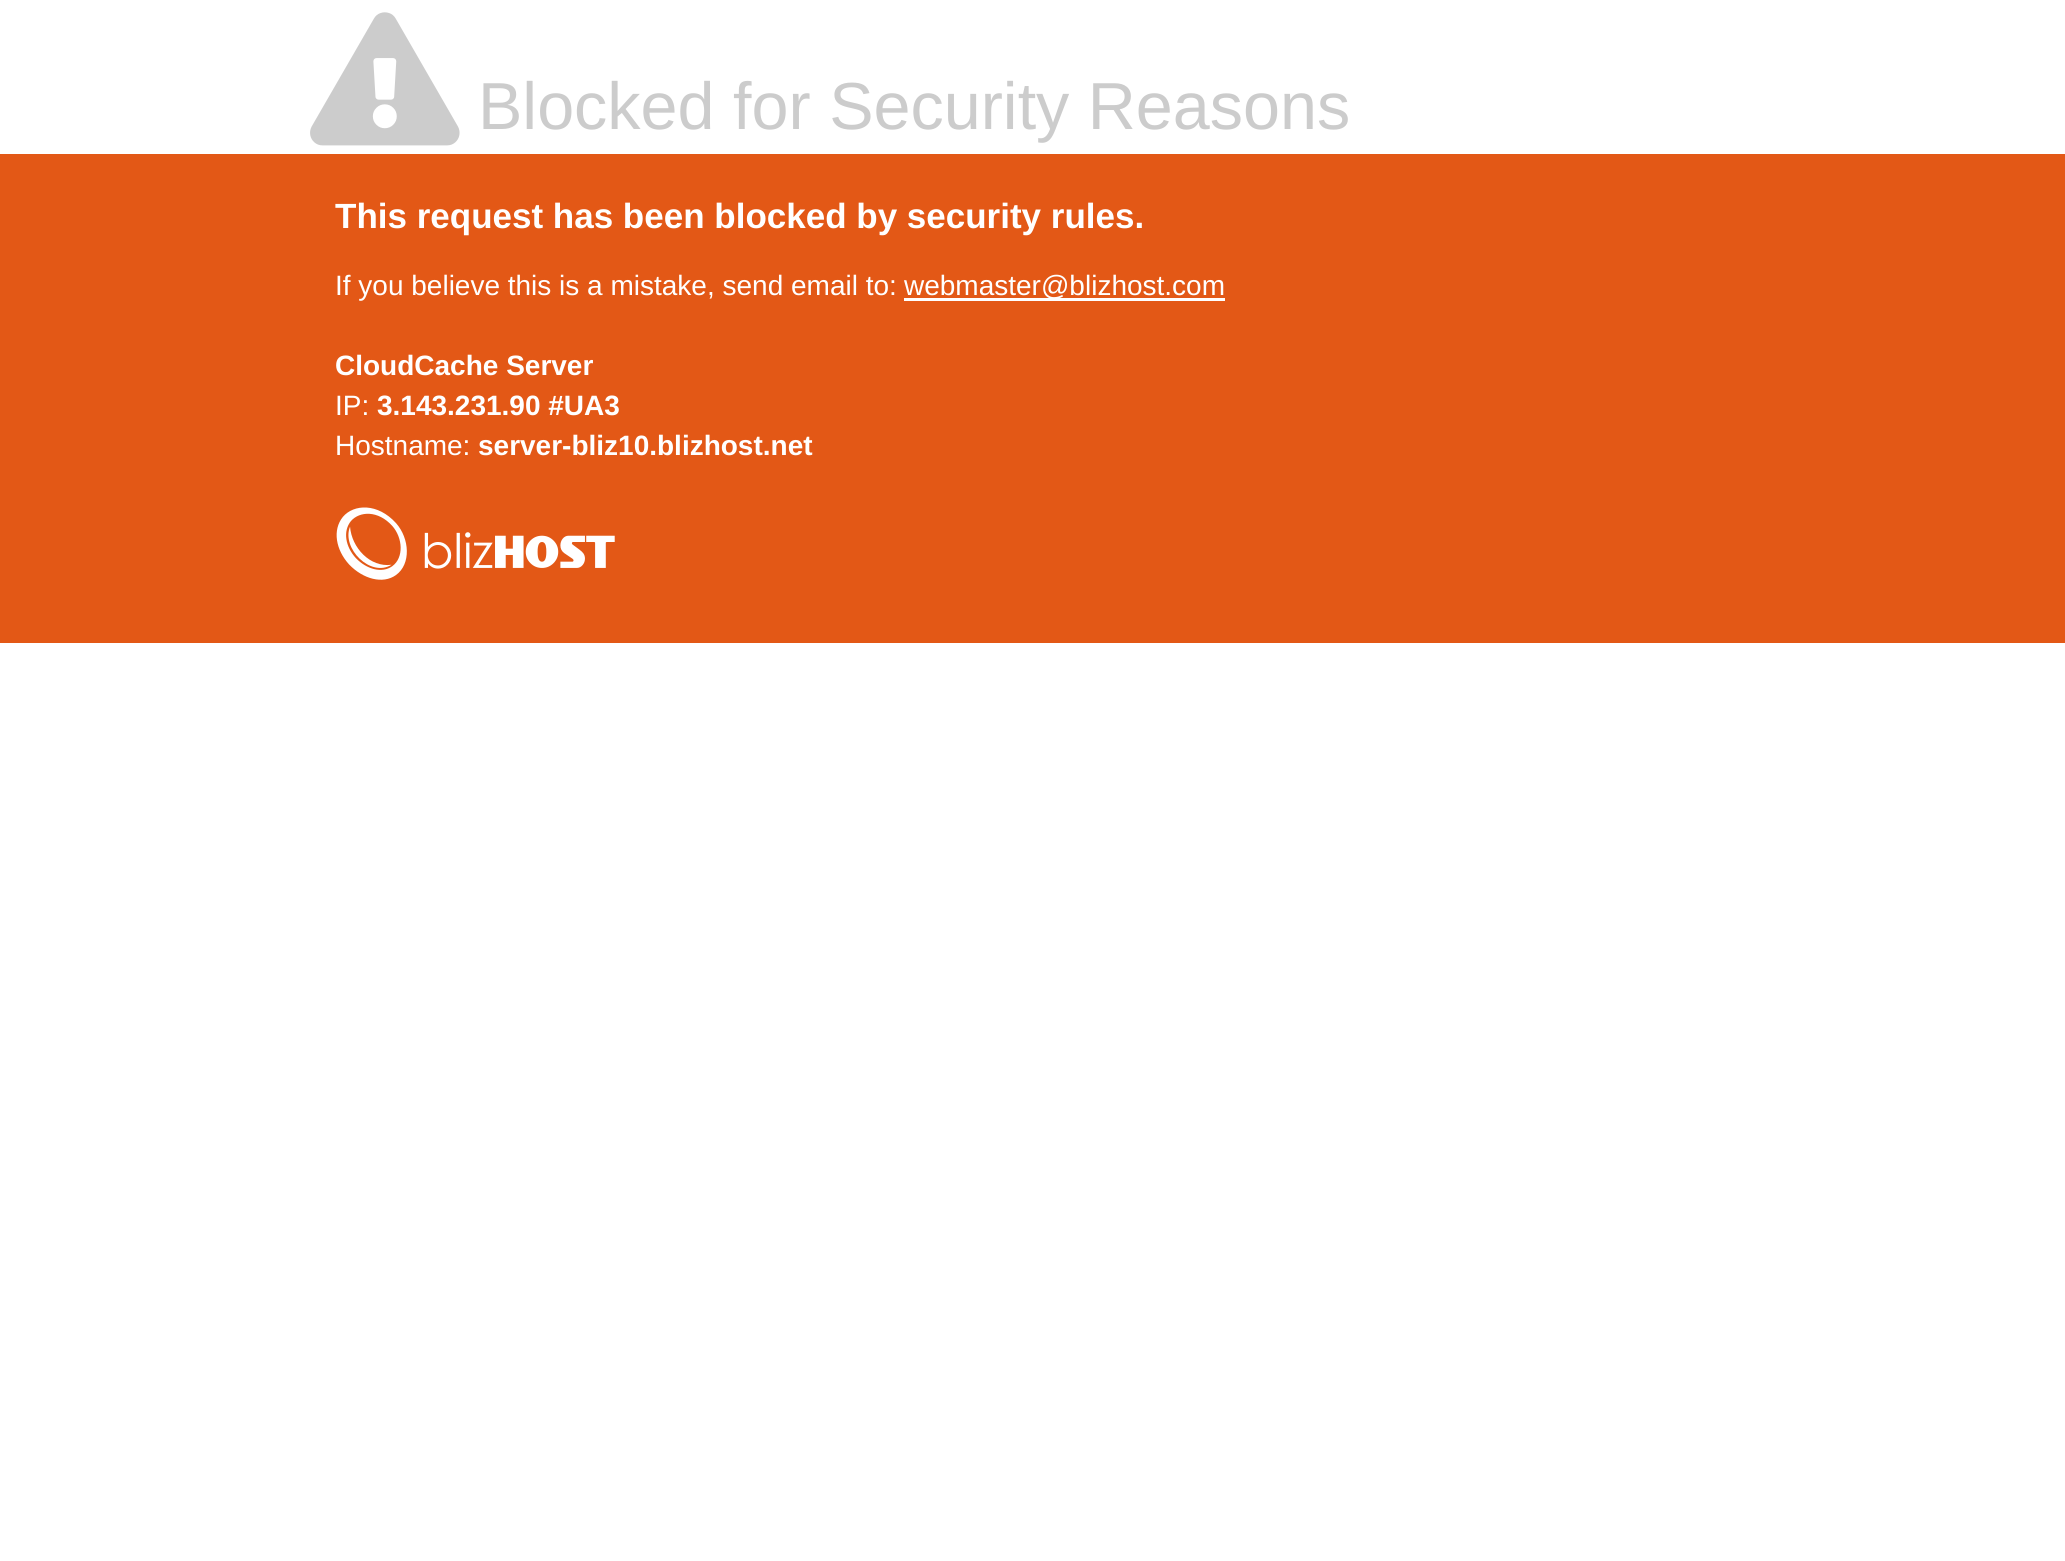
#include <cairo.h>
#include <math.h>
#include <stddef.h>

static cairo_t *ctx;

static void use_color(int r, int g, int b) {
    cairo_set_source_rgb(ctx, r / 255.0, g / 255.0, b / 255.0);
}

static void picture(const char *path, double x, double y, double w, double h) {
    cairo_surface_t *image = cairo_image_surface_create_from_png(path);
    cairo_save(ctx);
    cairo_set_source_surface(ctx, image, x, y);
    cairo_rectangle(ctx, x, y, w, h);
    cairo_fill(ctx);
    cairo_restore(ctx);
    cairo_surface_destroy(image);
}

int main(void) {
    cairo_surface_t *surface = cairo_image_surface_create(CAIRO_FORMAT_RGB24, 2065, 1561);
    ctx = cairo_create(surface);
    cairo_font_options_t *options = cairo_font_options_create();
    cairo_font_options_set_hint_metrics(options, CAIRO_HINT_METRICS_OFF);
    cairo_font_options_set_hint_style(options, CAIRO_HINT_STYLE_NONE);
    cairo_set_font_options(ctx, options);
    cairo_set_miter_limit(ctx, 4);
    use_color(255, 255, 255);
    cairo_paint(ctx);
    picture("img1.png", 310, 12, 150, 134);
    cairo_select_font_face(ctx, "Liberation Sans", CAIRO_FONT_SLANT_NORMAL, CAIRO_FONT_WEIGHT_NORMAL);
    cairo_set_font_size(ctx, 66.5);
    use_color(204, 204, 204);
    cairo_move_to(ctx, 478, 129);
    cairo_show_text(ctx, "Blocked for Security Reasons");
    use_color(227, 88, 22);
    cairo_rectangle(ctx, 0, 154, 2065, 489);
    cairo_fill(ctx);
    cairo_select_font_face(ctx, "Liberation Sans", CAIRO_FONT_SLANT_NORMAL, CAIRO_FONT_WEIGHT_BOLD);
    cairo_set_font_size(ctx, 35);
    use_color(255, 255, 255);
    cairo_move_to(ctx, 335, 228);
    cairo_show_text(ctx, "This request has been blocked by security rules.");
    cairo_select_font_face(ctx, "Liberation Sans", CAIRO_FONT_SLANT_NORMAL, CAIRO_FONT_WEIGHT_NORMAL);
    cairo_set_font_size(ctx, 28);
    cairo_move_to(ctx, 335, 295);
    cairo_show_text(ctx, "If you believe this is a mistake, send email to:");
    cairo_rectangle(ctx, 904, 298, 321, 3);
    cairo_fill(ctx);
    cairo_move_to(ctx, 904, 295);
    cairo_show_text(ctx, "webmaster@blizhost.com");
    cairo_select_font_face(ctx, "Liberation Sans", CAIRO_FONT_SLANT_NORMAL, CAIRO_FONT_WEIGHT_BOLD);
    cairo_move_to(ctx, 335, 375);
    cairo_show_text(ctx, "CloudCache Server");
    cairo_select_font_face(ctx, "Liberation Sans", CAIRO_FONT_SLANT_NORMAL, CAIRO_FONT_WEIGHT_NORMAL);
    cairo_move_to(ctx, 335, 415);
    cairo_show_text(ctx, "IP:");
    cairo_select_font_face(ctx, "Liberation Sans", CAIRO_FONT_SLANT_NORMAL, CAIRO_FONT_WEIGHT_BOLD);
    cairo_move_to(ctx, 377, 415);
    cairo_show_text(ctx, "3.143.231.90 #UA3");
    cairo_select_font_face(ctx, "Liberation Sans", CAIRO_FONT_SLANT_NORMAL, CAIRO_FONT_WEIGHT_NORMAL);
    cairo_move_to(ctx, 335, 455);
    cairo_show_text(ctx, "Hostname:");
    cairo_select_font_face(ctx, "Liberation Sans", CAIRO_FONT_SLANT_NORMAL, CAIRO_FONT_WEIGHT_BOLD);
    cairo_move_to(ctx, 478, 455);
    cairo_show_text(ctx, "server-bliz10.blizhost.net");
    picture("img2.png", 336, 507, 279, 73);
    cairo_surface_write_to_png(surface, "result.png");
    cairo_font_options_destroy(options);
    cairo_destroy(ctx);
    cairo_surface_destroy(surface);
    return 0;
}
